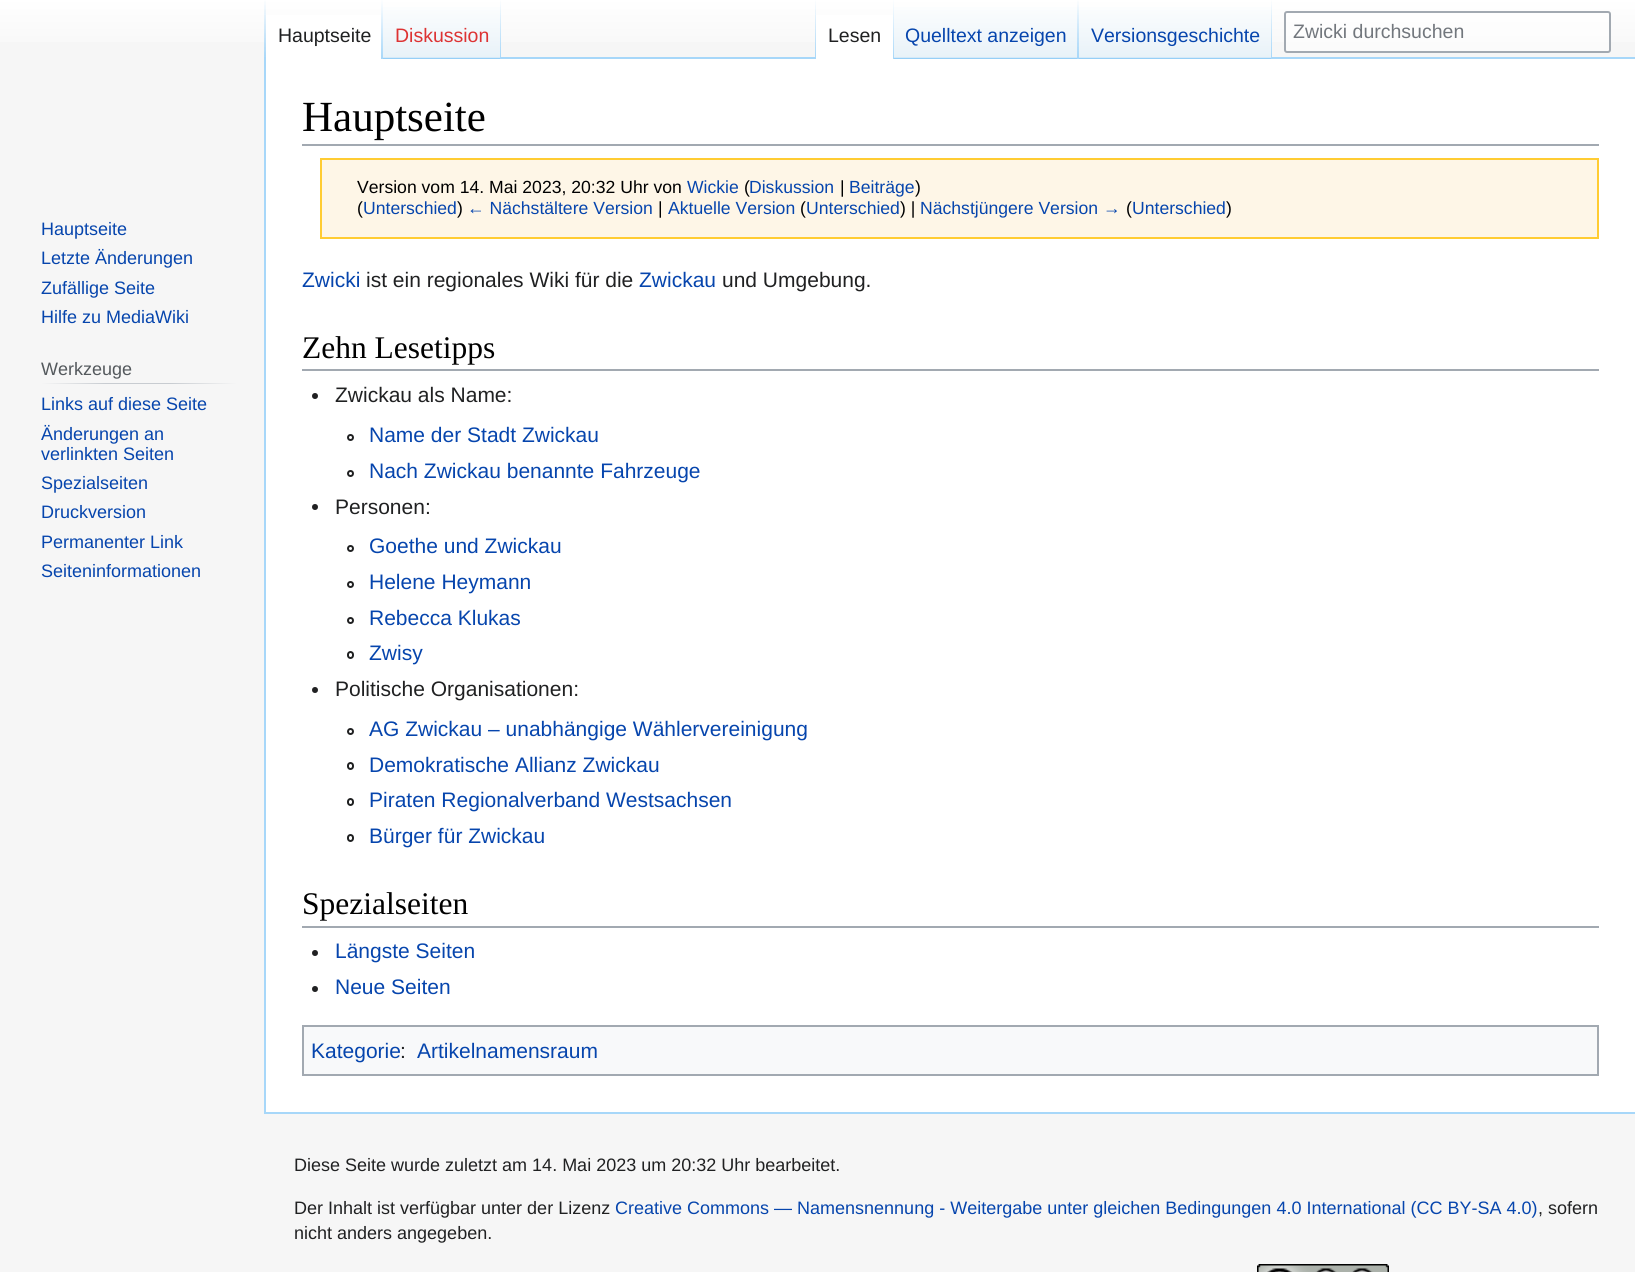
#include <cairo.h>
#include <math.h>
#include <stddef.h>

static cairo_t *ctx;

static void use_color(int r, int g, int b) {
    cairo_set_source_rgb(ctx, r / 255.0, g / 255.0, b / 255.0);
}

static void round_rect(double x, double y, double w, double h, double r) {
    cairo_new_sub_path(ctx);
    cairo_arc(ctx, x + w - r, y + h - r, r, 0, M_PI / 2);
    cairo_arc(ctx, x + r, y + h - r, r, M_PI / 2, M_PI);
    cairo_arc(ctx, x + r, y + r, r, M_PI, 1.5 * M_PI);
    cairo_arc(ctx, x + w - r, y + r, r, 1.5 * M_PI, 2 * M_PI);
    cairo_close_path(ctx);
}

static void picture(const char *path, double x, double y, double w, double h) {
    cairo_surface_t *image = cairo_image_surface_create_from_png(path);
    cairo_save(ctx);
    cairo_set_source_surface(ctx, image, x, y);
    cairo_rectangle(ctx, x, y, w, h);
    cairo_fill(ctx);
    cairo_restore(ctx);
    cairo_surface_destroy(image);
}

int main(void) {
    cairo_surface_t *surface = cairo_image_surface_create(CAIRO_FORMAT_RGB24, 1635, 1272);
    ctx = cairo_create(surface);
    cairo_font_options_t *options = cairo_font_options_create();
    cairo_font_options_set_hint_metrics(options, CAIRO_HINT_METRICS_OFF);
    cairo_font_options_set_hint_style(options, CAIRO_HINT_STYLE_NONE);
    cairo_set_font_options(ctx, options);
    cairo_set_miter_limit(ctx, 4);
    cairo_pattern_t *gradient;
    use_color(246, 246, 246);
    cairo_paint(ctx);
    gradient = cairo_pattern_create_linear(818, -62, 818, 59);
    cairo_pattern_add_color_stop_rgba(gradient, 0.5, 1, 1, 1, 1);
    cairo_pattern_add_color_stop_rgba(gradient, 1, 0.965, 0.965, 0.965, 1);
    cairo_set_source(ctx, gradient);
    cairo_pattern_destroy(gradient);
    cairo_rectangle(ctx, 0, 0, 1635, 42);
    cairo_fill(ctx);
    use_color(167, 215, 249);
    cairo_rectangle(ctx, 264, 1112, 1371, 2);
    cairo_fill(ctx);
    cairo_rectangle(ctx, 264, 57, 2, 1056);
    cairo_fill(ctx);
    gradient = cairo_pattern_create_linear(265, -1.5, 265, 59);
    cairo_pattern_add_color_stop_rgba(gradient, 0, 0.655, 0.843, 0.976, 0);
    cairo_pattern_add_color_stop_rgba(gradient, 1, 0.655, 0.843, 0.976, 1);
    cairo_set_source(ctx, gradient);
    cairo_pattern_destroy(gradient);
    cairo_rectangle(ctx, 264, 0, 2, 59);
    cairo_fill(ctx);
    use_color(255, 255, 255);
    cairo_rectangle(ctx, 266, 15, 115, 44);
    cairo_fill(ctx);
    gradient = cairo_pattern_create_linear(382, -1.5, 382, 59);
    cairo_pattern_add_color_stop_rgba(gradient, 0, 1, 1, 1, 1);
    cairo_pattern_add_color_stop_rgba(gradient, 1, 0.655, 0.843, 0.976, 1);
    cairo_set_source(ctx, gradient);
    cairo_pattern_destroy(gradient);
    cairo_rectangle(ctx, 381, 0, 2, 59);
    cairo_fill(ctx);
    cairo_select_font_face(ctx, "Liberation Sans", CAIRO_FONT_SLANT_NORMAL, CAIRO_FONT_WEIGHT_NORMAL);
    cairo_set_font_size(ctx, 19.5);
    use_color(32, 33, 34);
    cairo_move_to(ctx, 278, 42);
    cairo_show_text(ctx, "Hauptseite");
    gradient = cairo_pattern_create_linear(442, 59, 442, -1.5);
    cairo_pattern_add_color_stop_rgba(gradient, 0, 0.467, 0.757, 0.965, 1);
    cairo_pattern_add_color_stop_rgba(gradient, 0.03, 0.91, 0.949, 0.973, 1);
    cairo_pattern_add_color_stop_rgba(gradient, 1, 1, 1, 1, 1);
    cairo_set_source(ctx, gradient);
    cairo_pattern_destroy(gradient);
    cairo_rectangle(ctx, 383, 7, 118, 52);
    cairo_fill(ctx);
    gradient = cairo_pattern_create_linear(500, -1.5, 500, 59);
    cairo_pattern_add_color_stop_rgba(gradient, 0, 0.655, 0.843, 0.976, 0);
    cairo_pattern_add_color_stop_rgba(gradient, 1, 0.655, 0.843, 0.976, 1);
    cairo_set_source(ctx, gradient);
    cairo_pattern_destroy(gradient);
    cairo_rectangle(ctx, 500, 0, 1, 59);
    cairo_fill(ctx);
    use_color(221, 51, 51);
    cairo_move_to(ctx, 395, 42);
    cairo_show_text(ctx, "Diskussion");
    use_color(167, 215, 249);
    cairo_rectangle(ctx, 501, 57, 1134, 2);
    cairo_fill(ctx);
    gradient = cairo_pattern_create_linear(815, -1.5, 815, 59);
    cairo_pattern_add_color_stop_rgba(gradient, 0, 0.655, 0.843, 0.976, 0);
    cairo_pattern_add_color_stop_rgba(gradient, 1, 0.655, 0.843, 0.976, 1);
    cairo_set_source(ctx, gradient);
    cairo_pattern_destroy(gradient);
    cairo_rectangle(ctx, 815, 0, 1, 59);
    cairo_fill(ctx);
    use_color(255, 255, 255);
    cairo_rectangle(ctx, 816, 15, 77, 44);
    cairo_fill(ctx);
    gradient = cairo_pattern_create_linear(893, -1.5, 893, 59);
    cairo_pattern_add_color_stop_rgba(gradient, 0, 1, 1, 1, 1);
    cairo_pattern_add_color_stop_rgba(gradient, 1, 0.655, 0.843, 0.976, 1);
    cairo_set_source(ctx, gradient);
    cairo_pattern_destroy(gradient);
    cairo_rectangle(ctx, 893, 0, 1, 59);
    cairo_fill(ctx);
    use_color(32, 33, 34);
    cairo_move_to(ctx, 828, 42);
    cairo_show_text(ctx, "Lesen");
    gradient = cairo_pattern_create_linear(986, 59, 986, -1.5);
    cairo_pattern_add_color_stop_rgba(gradient, 0, 0.467, 0.757, 0.965, 1);
    cairo_pattern_add_color_stop_rgba(gradient, 0.03, 0.91, 0.949, 0.973, 1);
    cairo_pattern_add_color_stop_rgba(gradient, 1, 1, 1, 1, 1);
    cairo_set_source(ctx, gradient);
    cairo_pattern_destroy(gradient);
    cairo_rectangle(ctx, 894, 7, 185, 52);
    cairo_fill(ctx);
    gradient = cairo_pattern_create_linear(1078, -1.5, 1078, 59);
    cairo_pattern_add_color_stop_rgba(gradient, 0, 0.655, 0.843, 0.976, 0);
    cairo_pattern_add_color_stop_rgba(gradient, 1, 0.655, 0.843, 0.976, 1);
    cairo_set_source(ctx, gradient);
    cairo_pattern_destroy(gradient);
    cairo_rectangle(ctx, 1077, 0, 2, 59);
    cairo_fill(ctx);
    use_color(6, 69, 173);
    cairo_move_to(ctx, 905, 42);
    cairo_show_text(ctx, "Quelltext anzeigen");
    gradient = cairo_pattern_create_linear(1175, 59, 1175, -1.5);
    cairo_pattern_add_color_stop_rgba(gradient, 0, 0.467, 0.757, 0.965, 1);
    cairo_pattern_add_color_stop_rgba(gradient, 0.03, 0.91, 0.949, 0.973, 1);
    cairo_pattern_add_color_stop_rgba(gradient, 1, 1, 1, 1, 1);
    cairo_set_source(ctx, gradient);
    cairo_pattern_destroy(gradient);
    cairo_rectangle(ctx, 1079, 7, 193, 52);
    cairo_fill(ctx);
    gradient = cairo_pattern_create_linear(1271, -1.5, 1271, 59);
    cairo_pattern_add_color_stop_rgba(gradient, 0, 0.655, 0.843, 0.976, 0);
    cairo_pattern_add_color_stop_rgba(gradient, 1, 0.655, 0.843, 0.976, 1);
    cairo_set_source(ctx, gradient);
    cairo_pattern_destroy(gradient);
    cairo_rectangle(ctx, 1271, 0, 1, 59);
    cairo_fill(ctx);
    use_color(6, 69, 173);
    cairo_move_to(ctx, 1091, 42);
    cairo_show_text(ctx, "Versionsgeschichte");
    cairo_set_source_rgba(ctx, 1, 1, 1, 0.5);
    round_rect(1285, 12, 325, 40, 2);
    cairo_fill_preserve(ctx);
    use_color(162, 169, 177);
    cairo_stroke(ctx);
    use_color(114, 119, 125);
    cairo_move_to(ctx, 1293, 38);
    cairo_show_text(ctx, "Zwicki durchsuchen");
    cairo_set_font_size(ctx, 18);
    use_color(6, 69, 173);
    cairo_move_to(ctx, 41, 235);
    cairo_show_text(ctx, "Hauptseite");
    cairo_move_to(ctx, 41, 264);
    cairo_show_text(ctx, "Letzte Änderungen");
    cairo_move_to(ctx, 41, 294);
    cairo_show_text(ctx, "Zufällige Seite");
    cairo_move_to(ctx, 41, 323);
    cairo_show_text(ctx, "Hilfe zu MediaWiki");
    gradient = cairo_pattern_create_linear(41, 383, 237, 383);
    cairo_pattern_add_color_stop_rgba(gradient, 0, 0.965, 0.965, 0.965, 1);
    cairo_pattern_add_color_stop_rgba(gradient, 0.33, 0.784, 0.8, 0.82, 1);
    cairo_pattern_add_color_stop_rgba(gradient, 0.66, 0.784, 0.8, 0.82, 1);
    cairo_pattern_add_color_stop_rgba(gradient, 1, 0.965, 0.965, 0.965, 1);
    cairo_set_source(ctx, gradient);
    cairo_pattern_destroy(gradient);
    cairo_rectangle(ctx, 41, 383, 196, 1);
    cairo_fill(ctx);
    use_color(84, 89, 93);
    cairo_move_to(ctx, 41, 375);
    cairo_show_text(ctx, "Werkzeuge");
    use_color(6, 69, 173);
    cairo_move_to(ctx, 41, 410);
    cairo_show_text(ctx, "Links auf diese Seite");
    cairo_move_to(ctx, 41, 440);
    cairo_show_text(ctx, "Änderungen an");
    cairo_move_to(ctx, 41, 460);
    cairo_show_text(ctx, "verlinkten Seiten");
    cairo_move_to(ctx, 41, 489);
    cairo_show_text(ctx, "Spezialseiten");
    cairo_move_to(ctx, 41, 518);
    cairo_show_text(ctx, "Druckversion");
    cairo_move_to(ctx, 41, 548);
    cairo_show_text(ctx, "Permanenter Link");
    cairo_move_to(ctx, 41, 577);
    cairo_show_text(ctx, "Seiteninformationen");
    use_color(255, 255, 255);
    cairo_rectangle(ctx, 266, 59, 1369, 1053);
    cairo_fill(ctx);
    use_color(162, 169, 177);
    cairo_rectangle(ctx, 302, 144, 1297, 2);
    cairo_fill(ctx);
    cairo_select_font_face(ctx, "Liberation Serif", CAIRO_FONT_SLANT_NORMAL, CAIRO_FONT_WEIGHT_NORMAL);
    cairo_set_font_size(ctx, 43);
    use_color(0, 0, 0);
    cairo_move_to(ctx, 302, 131);
    cairo_show_text(ctx, "Hauptseite");
    use_color(254, 246, 231);
    cairo_rectangle(ctx, 321, 159, 1277, 79);
    cairo_fill_preserve(ctx);
    use_color(255, 204, 51);
    cairo_stroke(ctx);
    cairo_select_font_face(ctx, "Liberation Sans", CAIRO_FONT_SLANT_NORMAL, CAIRO_FONT_WEIGHT_NORMAL);
    cairo_set_font_size(ctx, 17.6);
    use_color(0, 0, 0);
    cairo_move_to(ctx, 357, 193);
    cairo_show_text(ctx, "Version vom 14. Mai 2023, 20:32 Uhr von");
    use_color(6, 69, 173);
    cairo_move_to(ctx, 687, 193);
    cairo_show_text(ctx, "Wickie");
    use_color(0, 0, 0);
    cairo_move_to(ctx, 744, 193);
    cairo_show_text(ctx, "(");
    use_color(6, 69, 173);
    cairo_move_to(ctx, 749, 193);
    cairo_show_text(ctx, "Diskussion");
    use_color(0, 0, 0);
    cairo_move_to(ctx, 840, 193);
    cairo_show_text(ctx, "|");
    use_color(6, 69, 173);
    cairo_move_to(ctx, 849, 193);
    cairo_show_text(ctx, "Beiträge");
    use_color(0, 0, 0);
    cairo_move_to(ctx, 915, 193);
    cairo_show_text(ctx, ")");
    cairo_move_to(ctx, 357, 214);
    cairo_show_text(ctx, "(");
    use_color(6, 69, 173);
    cairo_move_to(ctx, 363, 214);
    cairo_show_text(ctx, "Unterschied");
    use_color(0, 0, 0);
    cairo_move_to(ctx, 457, 214);
    cairo_show_text(ctx, ")");
    use_color(6, 69, 173);
    cairo_move_to(ctx, 467, 214);
    cairo_show_text(ctx, "← Nächstältere Version");
    use_color(0, 0, 0);
    cairo_move_to(ctx, 658, 214);
    cairo_show_text(ctx, "|");
    use_color(6, 69, 173);
    cairo_move_to(ctx, 668, 214);
    cairo_show_text(ctx, "Aktuelle Version");
    use_color(0, 0, 0);
    cairo_move_to(ctx, 800, 214);
    cairo_show_text(ctx, "(");
    use_color(6, 69, 173);
    cairo_move_to(ctx, 806, 214);
    cairo_show_text(ctx, "Unterschied");
    use_color(0, 0, 0);
    cairo_move_to(ctx, 900, 214);
    cairo_show_text(ctx, ") |");
    use_color(6, 69, 173);
    cairo_move_to(ctx, 920, 214);
    cairo_show_text(ctx, "Nächstjüngere Version →");
    use_color(0, 0, 0);
    cairo_move_to(ctx, 1126, 214);
    cairo_show_text(ctx, "(");
    use_color(6, 69, 173);
    cairo_move_to(ctx, 1132, 214);
    cairo_show_text(ctx, "Unterschied");
    use_color(0, 0, 0);
    cairo_move_to(ctx, 1226, 214);
    cairo_show_text(ctx, ")");
    cairo_set_font_size(ctx, 21);
    use_color(6, 69, 173);
    cairo_move_to(ctx, 302, 287);
    cairo_show_text(ctx, "Zwicki");
    use_color(32, 33, 34);
    cairo_move_to(ctx, 366, 287);
    cairo_show_text(ctx, "ist ein regionales Wiki für die");
    use_color(6, 69, 173);
    cairo_move_to(ctx, 639, 287);
    cairo_show_text(ctx, "Zwickau");
    use_color(32, 33, 34);
    cairo_move_to(ctx, 722, 287);
    cairo_show_text(ctx, "und Umgebung.");
    use_color(162, 169, 177);
    cairo_rectangle(ctx, 302, 369, 1297, 2);
    cairo_fill(ctx);
    cairo_select_font_face(ctx, "Liberation Serif", CAIRO_FONT_SLANT_NORMAL, CAIRO_FONT_WEIGHT_NORMAL);
    cairo_set_font_size(ctx, 31.5);
    use_color(0, 0, 0);
    cairo_move_to(ctx, 302, 358);
    cairo_show_text(ctx, "Zehn Lesetipps");
    use_color(32, 33, 34);
    cairo_new_path(ctx);
    cairo_arc(ctx, 315, 396, 3, 0, 2 * M_PI);
    cairo_fill(ctx);
    cairo_select_font_face(ctx, "Liberation Sans", CAIRO_FONT_SLANT_NORMAL, CAIRO_FONT_WEIGHT_NORMAL);
    cairo_set_font_size(ctx, 21);
    cairo_move_to(ctx, 335, 402);
    cairo_show_text(ctx, "Zwickau als Name:");
    cairo_new_path(ctx);
    cairo_arc(ctx, 350.5, 437.5, 2.5, 0, 2 * M_PI);
    cairo_stroke(ctx);
    use_color(6, 69, 173);
    cairo_move_to(ctx, 369, 442);
    cairo_show_text(ctx, "Name der Stadt Zwickau");
    cairo_new_path(ctx);
    cairo_arc(ctx, 350.5, 473.5, 2.5, 0, 2 * M_PI);
    use_color(32, 33, 34);
    cairo_stroke(ctx);
    use_color(6, 69, 173);
    cairo_move_to(ctx, 369, 478);
    cairo_show_text(ctx, "Nach Zwickau benannte Fahrzeuge");
    use_color(32, 33, 34);
    cairo_new_path(ctx);
    cairo_arc(ctx, 315, 507, 3, 0, 2 * M_PI);
    cairo_fill(ctx);
    cairo_move_to(ctx, 335, 514);
    cairo_show_text(ctx, "Personen:");
    cairo_new_path(ctx);
    cairo_arc(ctx, 350.5, 548.5, 2.5, 0, 2 * M_PI);
    cairo_stroke(ctx);
    use_color(6, 69, 173);
    cairo_move_to(ctx, 369, 553);
    cairo_show_text(ctx, "Goethe und Zwickau");
    cairo_new_path(ctx);
    cairo_arc(ctx, 350.5, 584.5, 2.5, 0, 2 * M_PI);
    use_color(32, 33, 34);
    cairo_stroke(ctx);
    use_color(6, 69, 173);
    cairo_move_to(ctx, 369, 589);
    cairo_show_text(ctx, "Helene Heymann");
    cairo_new_path(ctx);
    cairo_arc(ctx, 350.5, 620.5, 2.5, 0, 2 * M_PI);
    use_color(32, 33, 34);
    cairo_stroke(ctx);
    use_color(6, 69, 173);
    cairo_move_to(ctx, 369, 625);
    cairo_show_text(ctx, "Rebecca Klukas");
    round_rect(348, 652, 5, 6, 2.5);
    use_color(32, 33, 34);
    cairo_stroke(ctx);
    use_color(6, 69, 173);
    cairo_move_to(ctx, 369, 660);
    cairo_show_text(ctx, "Zwisy");
    use_color(32, 33, 34);
    cairo_new_path(ctx);
    cairo_arc(ctx, 315, 690, 3, 0, 2 * M_PI);
    cairo_fill(ctx);
    cairo_move_to(ctx, 335, 696);
    cairo_show_text(ctx, "Politische Organisationen:");
    cairo_new_path(ctx);
    cairo_arc(ctx, 350.5, 731.5, 2.5, 0, 2 * M_PI);
    cairo_stroke(ctx);
    use_color(6, 69, 173);
    cairo_move_to(ctx, 369, 736);
    cairo_show_text(ctx, "AG Zwickau – unabhängige Wählervereinigung");
    round_rect(348, 763, 5, 6, 2.5);
    use_color(32, 33, 34);
    cairo_stroke(ctx);
    use_color(6, 69, 173);
    cairo_move_to(ctx, 369, 772);
    cairo_show_text(ctx, "Demokratische Allianz Zwickau");
    round_rect(348, 799, 5, 6, 2.5);
    use_color(32, 33, 34);
    cairo_stroke(ctx);
    use_color(6, 69, 173);
    cairo_move_to(ctx, 369, 807);
    cairo_show_text(ctx, "Piraten Regionalverband Westsachsen");
    round_rect(348, 835, 5, 6, 2.5);
    use_color(32, 33, 34);
    cairo_stroke(ctx);
    use_color(6, 69, 173);
    cairo_move_to(ctx, 369, 843);
    cairo_show_text(ctx, "Bürger für Zwickau");
    use_color(162, 169, 177);
    cairo_rectangle(ctx, 302, 926, 1297, 2);
    cairo_fill(ctx);
    cairo_select_font_face(ctx, "Liberation Serif", CAIRO_FONT_SLANT_NORMAL, CAIRO_FONT_WEIGHT_NORMAL);
    cairo_set_font_size(ctx, 31.5);
    use_color(0, 0, 0);
    cairo_move_to(ctx, 302, 914);
    cairo_show_text(ctx, "Spezialseiten");
    use_color(32, 33, 34);
    cairo_new_path(ctx);
    cairo_arc(ctx, 315, 953, 3, 0, 2 * M_PI);
    cairo_fill(ctx);
    cairo_select_font_face(ctx, "Liberation Sans", CAIRO_FONT_SLANT_NORMAL, CAIRO_FONT_WEIGHT_NORMAL);
    cairo_set_font_size(ctx, 21);
    use_color(6, 69, 173);
    cairo_move_to(ctx, 335, 958);
    cairo_show_text(ctx, "Längste Seiten");
    use_color(32, 33, 34);
    cairo_new_path(ctx);
    cairo_arc(ctx, 315, 989, 3, 0, 2 * M_PI);
    cairo_fill(ctx);
    use_color(6, 69, 173);
    cairo_move_to(ctx, 335, 994);
    cairo_show_text(ctx, "Neue Seiten");
    use_color(248, 249, 250);
    cairo_rectangle(ctx, 303, 1026, 1295, 49);
    cairo_fill_preserve(ctx);
    use_color(162, 169, 177);
    cairo_stroke(ctx);
    use_color(6, 69, 173);
    cairo_move_to(ctx, 311, 1058);
    cairo_show_text(ctx, "Kategorie");
    use_color(32, 33, 34);
    cairo_move_to(ctx, 400, 1058);
    cairo_show_text(ctx, ":");
    use_color(6, 69, 173);
    cairo_move_to(ctx, 417, 1058);
    cairo_show_text(ctx, "Artikelnamensraum");
    cairo_set_font_size(ctx, 18);
    use_color(32, 33, 34);
    cairo_move_to(ctx, 294, 1171);
    cairo_show_text(ctx, "Diese Seite wurde zuletzt am 14. Mai 2023 um 20:32 Uhr bearbeitet.");
    cairo_move_to(ctx, 294, 1214);
    cairo_show_text(ctx, "Der Inhalt ist verfügbar unter der Lizenz");
    use_color(6, 69, 173);
    cairo_move_to(ctx, 615, 1214);
    cairo_show_text(ctx, "Creative Commons — Namensnennung - Weitergabe unter gleichen Bedingungen 4.0 International (CC BY-SA 4.0)");
    use_color(32, 33, 34);
    cairo_move_to(ctx, 1538, 1214);
    cairo_show_text(ctx, ", sofern");
    cairo_move_to(ctx, 294, 1239);
    cairo_show_text(ctx, "nicht anders angegeben.");
    picture("img1.png", 1257, 1264, 132, 8);
    cairo_surface_write_to_png(surface, "result.png");
    cairo_font_options_destroy(options);
    cairo_destroy(ctx);
    cairo_surface_destroy(surface);
    return 0;
}
